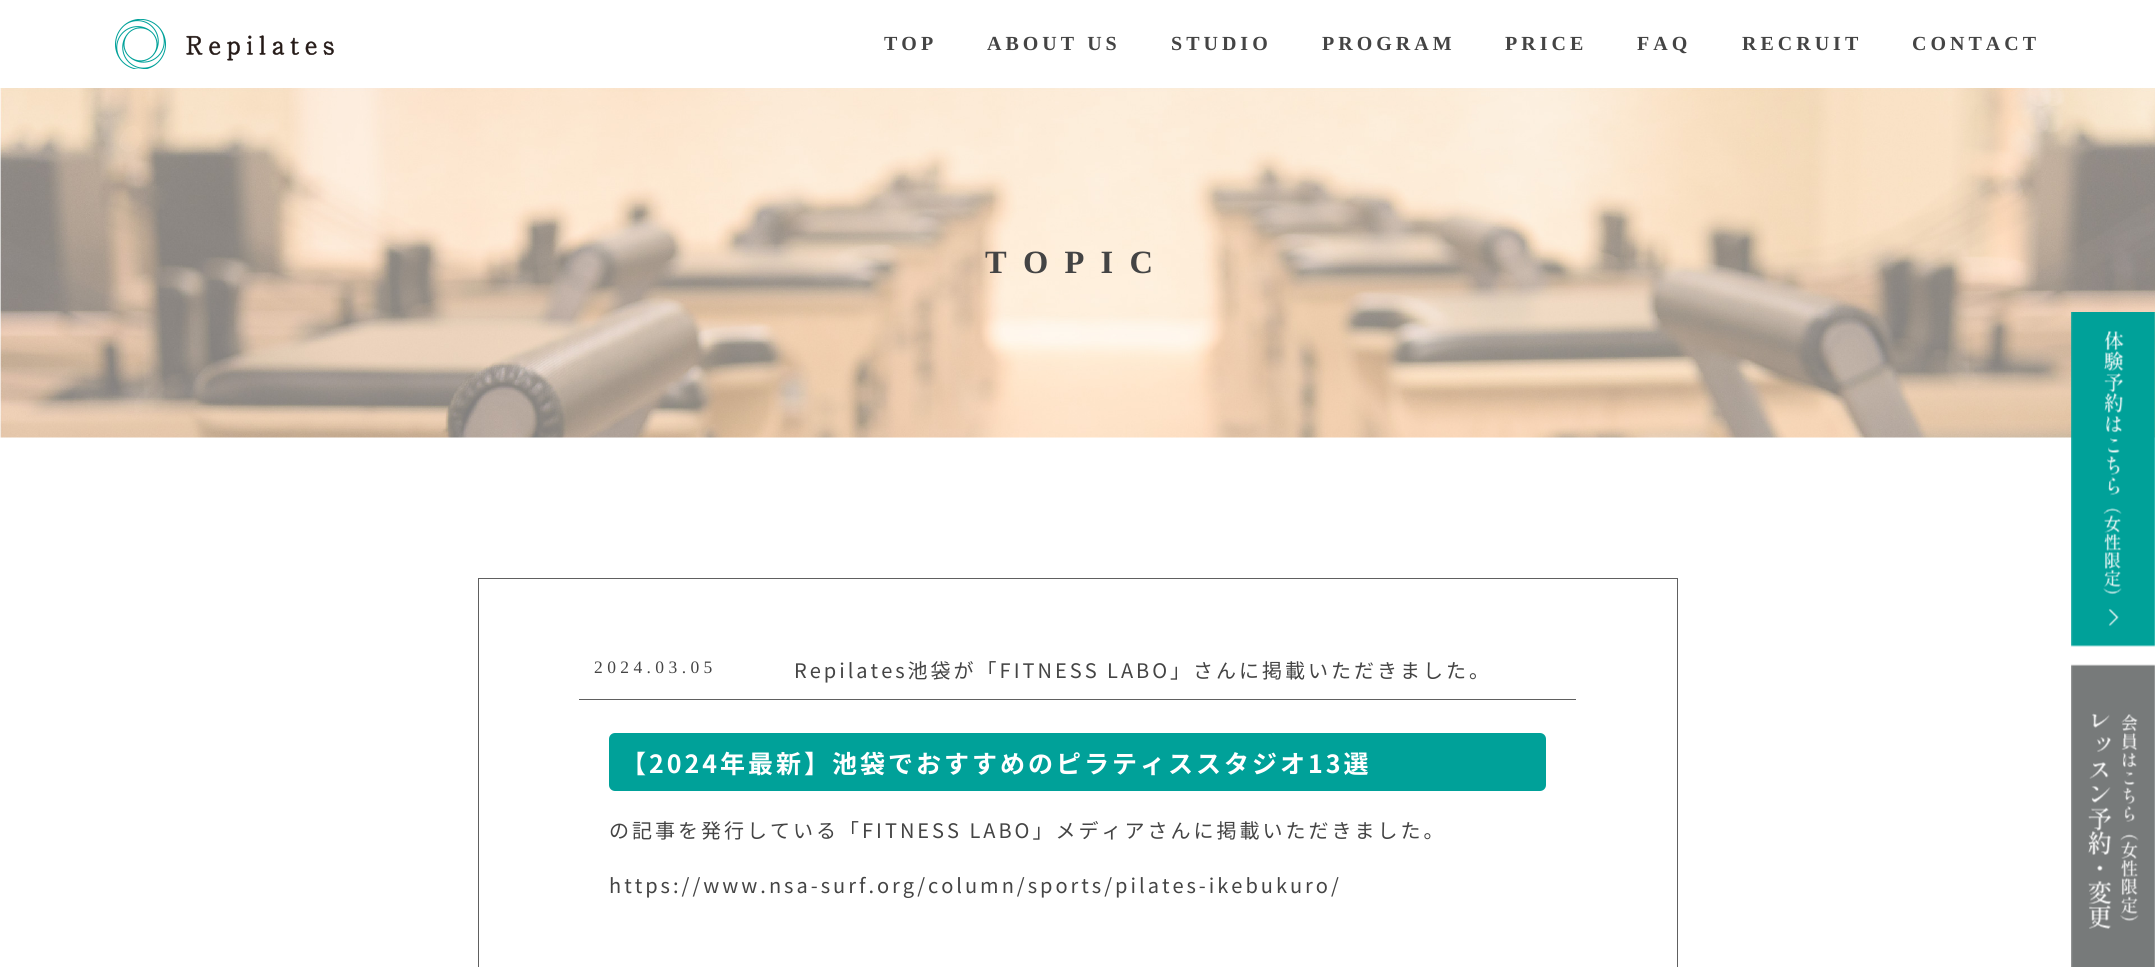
#include <cairo.h>
#include <math.h>
#include <stddef.h>

static cairo_t *ctx;

static void use_color(int r, int g, int b) {
    cairo_set_source_rgb(ctx, r / 255.0, g / 255.0, b / 255.0);
}

static void spaced_text(double x, double y, const char *s, double letter, double word) {
    cairo_move_to(ctx, x, y);
    while (*s) {
        char ch[5] = {0};
        int n = 0;
        do ch[n++] = *s++; while ((*s & 0xC0) == 0x80);
        cairo_show_text(ctx, ch);
        cairo_rel_move_to(ctx, letter + word * (*ch == ' '), 0);
    }
}

static void round_rect(double x, double y, double w, double h, double r) {
    cairo_new_sub_path(ctx);
    cairo_arc(ctx, x + w - r, y + h - r, r, 0, M_PI / 2);
    cairo_arc(ctx, x + r, y + h - r, r, M_PI / 2, M_PI);
    cairo_arc(ctx, x + r, y + r, r, M_PI, 1.5 * M_PI);
    cairo_arc(ctx, x + w - r, y + r, r, 1.5 * M_PI, 2 * M_PI);
    cairo_close_path(ctx);
}

static void picture(const char *path, double x, double y, double w, double h) {
    cairo_surface_t *image = cairo_image_surface_create_from_png(path);
    cairo_save(ctx);
    cairo_set_source_surface(ctx, image, x, y);
    cairo_rectangle(ctx, x, y, w, h);
    cairo_fill(ctx);
    cairo_restore(ctx);
    cairo_surface_destroy(image);
}

int main(void) {
    cairo_surface_t *surface = cairo_image_surface_create(CAIRO_FORMAT_RGB24, 2155, 967);
    ctx = cairo_create(surface);
    cairo_font_options_t *options = cairo_font_options_create();
    cairo_font_options_set_hint_metrics(options, CAIRO_HINT_METRICS_OFF);
    cairo_font_options_set_hint_style(options, CAIRO_HINT_STYLE_NONE);
    cairo_set_font_options(ctx, options);
    cairo_set_miter_limit(ctx, 4);
    use_color(255, 255, 255);
    cairo_paint(ctx);
    picture("img1.png", 115, 19, 219, 50);
    cairo_select_font_face(ctx, "Liberation Serif", CAIRO_FONT_SLANT_NORMAL, CAIRO_FONT_WEIGHT_BOLD);
    cairo_set_font_size(ctx, 20);
    use_color(68, 68, 68);
    spaced_text(884, 50, "TOP", 4, 0);
    spaced_text(987, 50, "ABOUT US", 4, 0);
    spaced_text(1171, 50, "STUDIO", 4, 0);
    spaced_text(1322, 50, "PROGRAM", 4, 0);
    spaced_text(1505, 50, "PRICE", 4, 0);
    spaced_text(1637, 50, "FAQ", 4, 0);
    spaced_text(1742, 50, "RECRUIT", 4, 0);
    spaced_text(1912, 50, "CONTACT", 4, 0);
    picture("img2.png", 0, 88, 2155, 350);
    cairo_set_font_size(ctx, 32.5);
    spaced_text(985, 273, "TOPIC", 16.25, 0);
    cairo_rectangle(ctx, 478.5, 578.5, 1199, 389);
    use_color(96, 96, 96);
    cairo_set_line_width(ctx, 1);
    cairo_stroke(ctx);
    cairo_rectangle(ctx, 579, 699, 997, 1);
    cairo_fill(ctx);
    cairo_select_font_face(ctx, "Liberation Serif", CAIRO_FONT_SLANT_NORMAL, CAIRO_FONT_WEIGHT_NORMAL);
    cairo_set_font_size(ctx, 17.5);
    use_color(68, 68, 68);
    spaced_text(594, 673, "2024.03.05", 4.4, 0);
    cairo_select_font_face(ctx, "Noto Sans JP", CAIRO_FONT_SLANT_NORMAL, CAIRO_FONT_WEIGHT_NORMAL);
    cairo_set_font_size(ctx, 20);
    spaced_text(794, 678, "Repilates池袋が「FITNESS LABO」さんに掲載いただきました。", 3, 0);
    use_color(0, 161, 153);
    round_rect(609, 733, 937, 58, 6);
    cairo_fill(ctx);
    cairo_select_font_face(ctx, "Noto Sans JP", CAIRO_FONT_SLANT_NORMAL, CAIRO_FONT_WEIGHT_BOLD);
    cairo_set_font_size(ctx, 25);
    use_color(255, 255, 255);
    spaced_text(621, 773, "【2024年最新】池袋でおすすめのピラティススタジオ13選", 3, 0);
    cairo_select_font_face(ctx, "Noto Sans JP", CAIRO_FONT_SLANT_NORMAL, CAIRO_FONT_WEIGHT_NORMAL);
    cairo_set_font_size(ctx, 20);
    use_color(68, 68, 68);
    spaced_text(609, 838, "の記事を発行している「FITNESS LABO」メディアさんに掲載いただきました。", 3, 0);
    spaced_text(609, 893, "https://www.nsa-surf.org/column/sports/pilates-ikebukuro/", 3, 0);
    picture("img3.png", 2071, 312, 84, 335);
    picture("img4.png", 2071, 664, 84, 303);
    cairo_surface_write_to_png(surface, "result.png");
    cairo_font_options_destroy(options);
    cairo_destroy(ctx);
    cairo_surface_destroy(surface);
    return 0;
}
